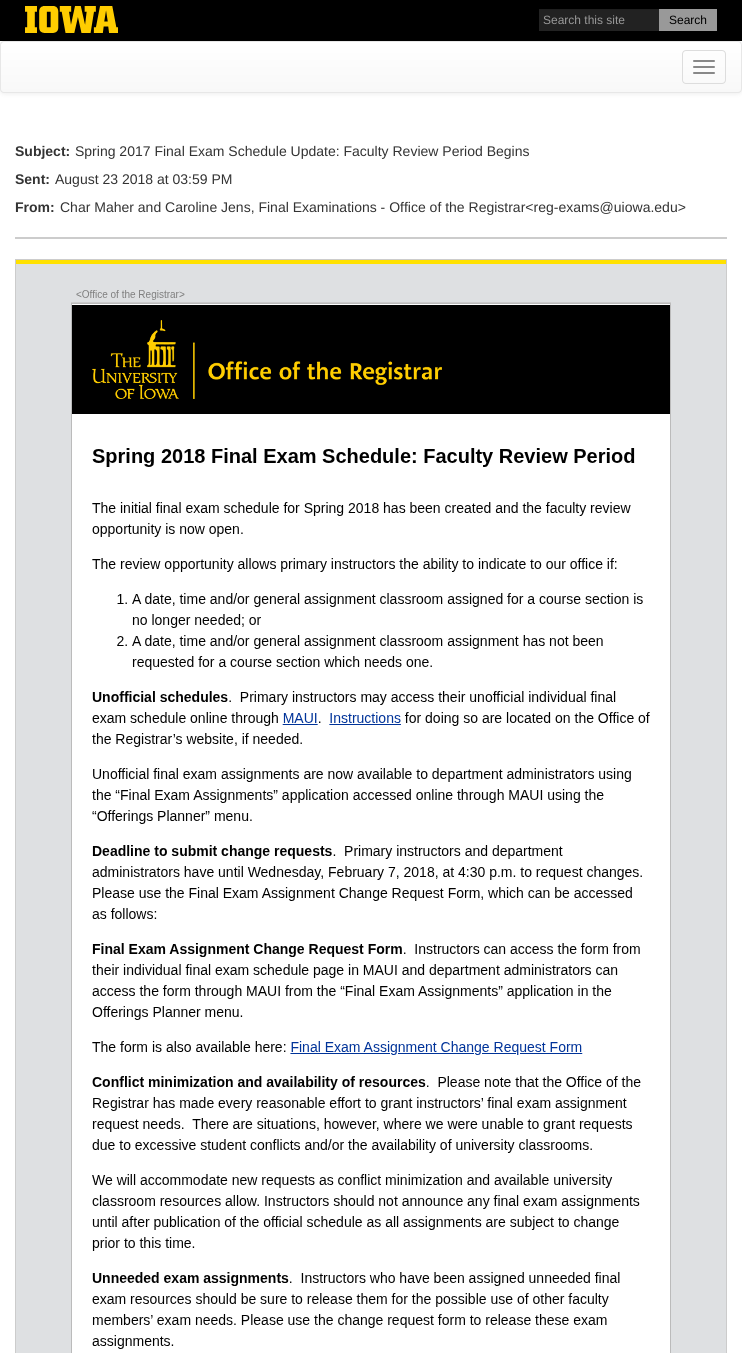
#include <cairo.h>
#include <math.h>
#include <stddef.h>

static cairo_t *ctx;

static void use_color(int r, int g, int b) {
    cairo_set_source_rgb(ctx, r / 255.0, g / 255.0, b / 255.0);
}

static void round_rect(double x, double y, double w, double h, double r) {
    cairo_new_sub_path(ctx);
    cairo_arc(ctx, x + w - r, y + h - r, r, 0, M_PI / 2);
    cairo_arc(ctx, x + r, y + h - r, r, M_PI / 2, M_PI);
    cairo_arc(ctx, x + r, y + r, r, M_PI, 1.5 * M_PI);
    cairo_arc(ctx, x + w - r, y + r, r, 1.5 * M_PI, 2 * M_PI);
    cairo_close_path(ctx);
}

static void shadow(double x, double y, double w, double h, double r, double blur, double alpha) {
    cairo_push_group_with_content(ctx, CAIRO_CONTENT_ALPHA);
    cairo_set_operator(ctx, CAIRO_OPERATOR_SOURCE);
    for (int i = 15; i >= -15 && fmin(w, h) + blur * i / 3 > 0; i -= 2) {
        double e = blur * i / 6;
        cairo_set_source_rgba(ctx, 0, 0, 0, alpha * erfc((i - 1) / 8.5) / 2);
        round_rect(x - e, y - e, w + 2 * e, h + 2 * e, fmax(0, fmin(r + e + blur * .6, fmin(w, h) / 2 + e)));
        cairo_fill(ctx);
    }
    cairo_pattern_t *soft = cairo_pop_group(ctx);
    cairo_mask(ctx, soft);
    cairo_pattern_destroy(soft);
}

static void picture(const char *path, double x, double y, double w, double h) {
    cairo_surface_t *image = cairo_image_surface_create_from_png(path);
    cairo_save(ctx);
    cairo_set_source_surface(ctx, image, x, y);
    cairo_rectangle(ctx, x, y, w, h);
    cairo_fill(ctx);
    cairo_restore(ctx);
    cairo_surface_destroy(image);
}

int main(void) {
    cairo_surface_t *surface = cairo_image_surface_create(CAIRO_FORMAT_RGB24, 742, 1353);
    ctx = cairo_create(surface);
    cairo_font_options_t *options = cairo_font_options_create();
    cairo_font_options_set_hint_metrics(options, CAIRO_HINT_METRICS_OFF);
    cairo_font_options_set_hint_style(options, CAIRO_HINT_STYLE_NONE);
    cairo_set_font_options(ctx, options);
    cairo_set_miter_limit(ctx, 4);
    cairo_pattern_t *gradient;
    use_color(255, 255, 255);
    cairo_paint(ctx);
    use_color(0, 0, 0);
    cairo_rectangle(ctx, 0, 0, 742, 41);
    cairo_fill(ctx);
    picture("img1.png", 25, 6, 93, 27);
    use_color(34, 34, 34);
    cairo_rectangle(ctx, 539, 10, 120, 21);
    cairo_fill(ctx);
    use_color(31, 31, 31);
    cairo_rectangle(ctx, 539, 9, 120, 1);
    cairo_fill(ctx);
    cairo_select_font_face(ctx, "Liberation Sans", CAIRO_FONT_SLANT_NORMAL, CAIRO_FONT_WEIGHT_NORMAL);
    cairo_set_font_size(ctx, 12);
    use_color(153, 153, 153);
    cairo_move_to(ctx, 543, 24);
    cairo_show_text(ctx, "Search this site");
    cairo_rectangle(ctx, 659, 9, 58, 22);
    cairo_fill(ctx);
    use_color(0, 0, 0);
    cairo_move_to(ctx, 669, 24);
    cairo_show_text(ctx, "Search");
    use_color(0, 0, 0);
    shadow(0, 42, 742, 52, 4, 2.5, 0.07);
    cairo_save(ctx);
    round_rect(0, 41, 742, 52, 4);
    cairo_clip(ctx);
    gradient = cairo_pattern_create_linear(371, 42, 371, 92);
    cairo_pattern_add_color_stop_rgba(gradient, 0, 1, 1, 1, 1);
    cairo_pattern_add_color_stop_rgba(gradient, 1, 0.973, 0.973, 0.973, 1);
    cairo_set_source(ctx, gradient);
    cairo_pattern_destroy(gradient);
    cairo_rectangle(ctx, 0, 42, 742, 50);
    cairo_fill(ctx);
    cairo_restore(ctx);
    round_rect(0.5, 41.5, 741, 51, 3.5);
    use_color(231, 231, 231);
    cairo_set_line_width(ctx, 1);
    cairo_stroke(ctx);
    round_rect(682.5, 50.5, 43, 33, 3.5);
    use_color(221, 221, 221);
    cairo_stroke(ctx);
    use_color(136, 136, 136);
    round_rect(693, 60, 22, 2, 1);
    cairo_fill(ctx);
    round_rect(693, 66, 22, 2, 1);
    cairo_fill(ctx);
    round_rect(693, 72, 22, 2, 1);
    cairo_fill(ctx);
    cairo_select_font_face(ctx, "Liberation Sans", CAIRO_FONT_SLANT_NORMAL, CAIRO_FONT_WEIGHT_BOLD);
    cairo_set_font_size(ctx, 14);
    use_color(51, 51, 51);
    cairo_move_to(ctx, 15, 156);
    cairo_show_text(ctx, "Subject:");
    cairo_select_font_face(ctx, "Liberation Sans", CAIRO_FONT_SLANT_NORMAL, CAIRO_FONT_WEIGHT_NORMAL);
    cairo_move_to(ctx, 75, 156);
    cairo_show_text(ctx, "Spring 2017 Final Exam Schedule Update: Faculty Review Period Begins");
    cairo_select_font_face(ctx, "Liberation Sans", CAIRO_FONT_SLANT_NORMAL, CAIRO_FONT_WEIGHT_BOLD);
    cairo_move_to(ctx, 15, 184);
    cairo_show_text(ctx, "Sent:");
    cairo_select_font_face(ctx, "Liberation Sans", CAIRO_FONT_SLANT_NORMAL, CAIRO_FONT_WEIGHT_NORMAL);
    cairo_move_to(ctx, 55, 184);
    cairo_show_text(ctx, "August 23 2018 at 03:59 PM");
    cairo_select_font_face(ctx, "Liberation Sans", CAIRO_FONT_SLANT_NORMAL, CAIRO_FONT_WEIGHT_BOLD);
    cairo_move_to(ctx, 15, 212);
    cairo_show_text(ctx, "From:");
    cairo_select_font_face(ctx, "Liberation Sans", CAIRO_FONT_SLANT_NORMAL, CAIRO_FONT_WEIGHT_NORMAL);
    cairo_move_to(ctx, 60, 212);
    cairo_show_text(ctx, "Char Maher and Caroline Jens, Final Examinations - Office of the Registrar<reg-exams@uiowa.edu>");
    use_color(204, 204, 204);
    cairo_rectangle(ctx, 15, 237, 712, 2);
    cairo_fill(ctx);
    cairo_rectangle(ctx, 15.5, 259.5, 711, 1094);
    cairo_stroke(ctx);
    picture("img2.png", 16, 260, 710, 1093);
    cairo_surface_write_to_png(surface, "result.png");
    cairo_font_options_destroy(options);
    cairo_destroy(ctx);
    cairo_surface_destroy(surface);
    return 0;
}
